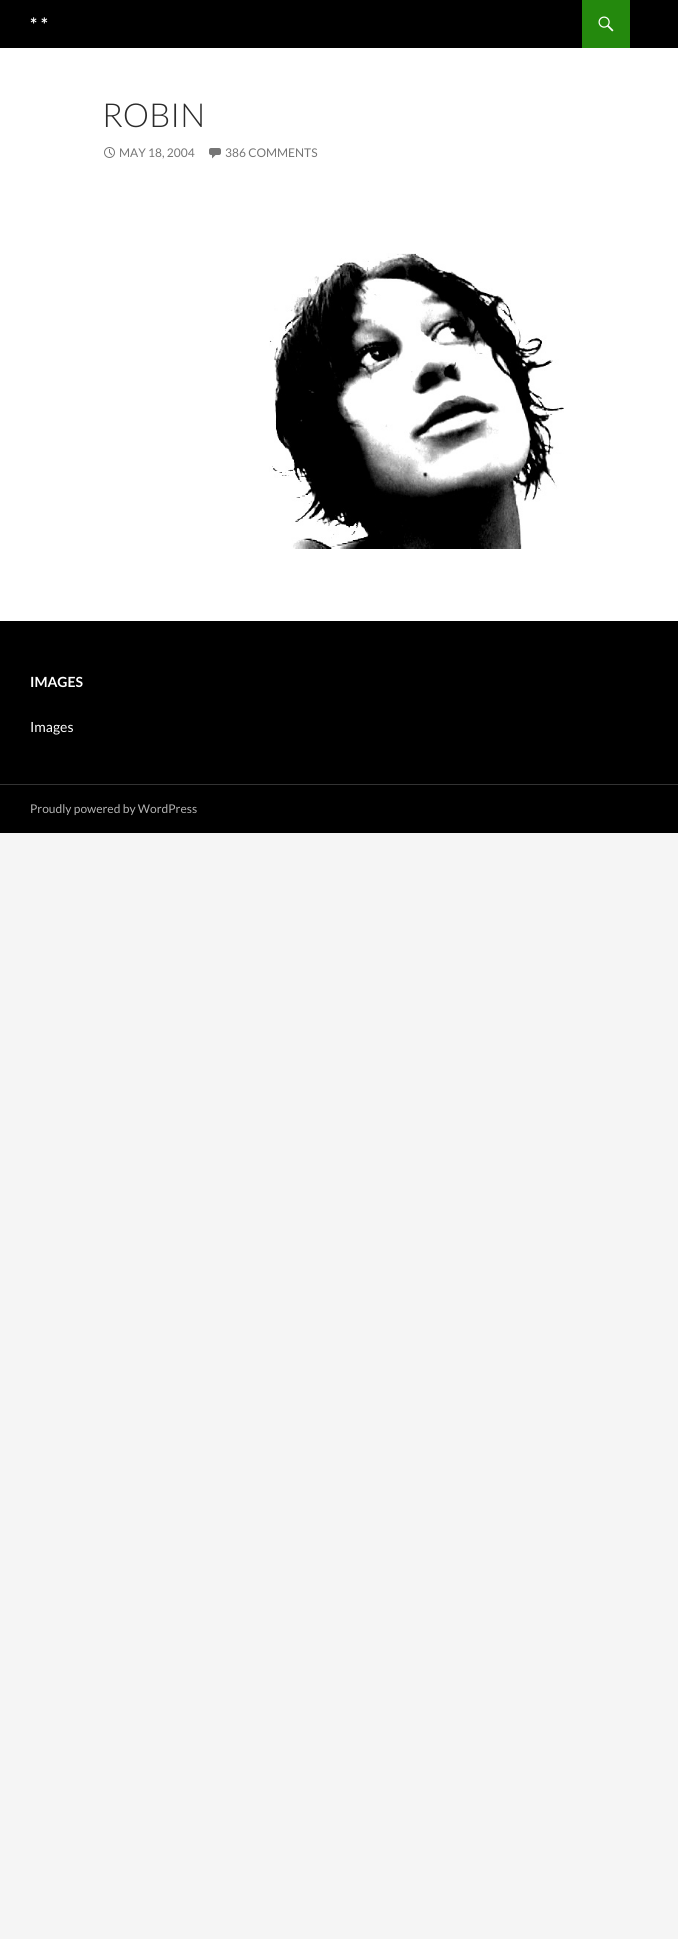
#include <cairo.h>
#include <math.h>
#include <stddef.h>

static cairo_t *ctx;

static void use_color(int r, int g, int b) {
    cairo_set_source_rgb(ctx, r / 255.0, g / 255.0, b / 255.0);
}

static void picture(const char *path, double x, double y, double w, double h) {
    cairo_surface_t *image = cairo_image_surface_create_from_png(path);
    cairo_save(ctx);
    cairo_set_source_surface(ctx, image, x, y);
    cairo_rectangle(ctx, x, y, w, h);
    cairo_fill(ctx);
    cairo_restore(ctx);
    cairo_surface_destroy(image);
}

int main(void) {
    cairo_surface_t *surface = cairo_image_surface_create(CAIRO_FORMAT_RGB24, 678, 1939);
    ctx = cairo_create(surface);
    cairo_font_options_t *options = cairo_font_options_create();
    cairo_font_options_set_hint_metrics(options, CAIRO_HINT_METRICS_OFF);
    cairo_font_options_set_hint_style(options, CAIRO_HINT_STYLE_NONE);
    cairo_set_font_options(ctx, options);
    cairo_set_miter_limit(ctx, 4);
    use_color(245, 245, 245);
    cairo_paint(ctx);
    use_color(255, 255, 255);
    cairo_rectangle(ctx, 0, 48, 678, 573);
    cairo_fill(ctx);
    use_color(0, 0, 0);
    cairo_rectangle(ctx, 0, 0, 678, 48);
    cairo_fill(ctx);
    cairo_select_font_face(ctx, "Lato", CAIRO_FONT_SLANT_NORMAL, CAIRO_FONT_WEIGHT_BOLD);
    cairo_set_font_size(ctx, 18);
    use_color(255, 255, 255);
    cairo_move_to(ctx, 30, 31);
    cairo_show_text(ctx, "* *");
    use_color(36, 137, 13);
    cairo_rectangle(ctx, 582, 0, 48, 48);
    cairo_fill(ctx);
    picture("img1.png", 598, 16, 16, 16);
    cairo_select_font_face(ctx, "Lato Light", CAIRO_FONT_SLANT_NORMAL, CAIRO_FONT_WEIGHT_NORMAL);
    cairo_set_font_size(ctx, 33);
    use_color(43, 43, 43);
    cairo_move_to(ctx, 102, 127);
    cairo_show_text(ctx, "ROBIN");
    picture("img2.png", 104, 147, 11, 11);
    cairo_select_font_face(ctx, "Lato", CAIRO_FONT_SLANT_NORMAL, CAIRO_FONT_WEIGHT_NORMAL);
    cairo_set_font_size(ctx, 12);
    use_color(118, 118, 118);
    cairo_move_to(ctx, 119, 157);
    cairo_show_text(ctx, "MAY 18, 2004");
    picture("img3.png", 209, 148, 12, 11);
    cairo_move_to(ctx, 225, 157);
    cairo_show_text(ctx, "386 COMMENTS");
    picture("img4.png", 269, 253, 295, 296);
    use_color(0, 0, 0);
    cairo_rectangle(ctx, 0, 621, 678, 163);
    cairo_fill(ctx);
    use_color(51, 51, 51);
    cairo_rectangle(ctx, 0, 784, 678, 1);
    cairo_fill(ctx);
    cairo_select_font_face(ctx, "Lato", CAIRO_FONT_SLANT_NORMAL, CAIRO_FONT_WEIGHT_BOLD);
    cairo_set_font_size(ctx, 14);
    use_color(255, 255, 255);
    cairo_move_to(ctx, 30, 687);
    cairo_show_text(ctx, "IMAGES");
    cairo_select_font_face(ctx, "Lato", CAIRO_FONT_SLANT_NORMAL, CAIRO_FONT_WEIGHT_NORMAL);
    cairo_move_to(ctx, 30, 732);
    cairo_show_text(ctx, "Images");
    use_color(0, 0, 0);
    cairo_rectangle(ctx, 0, 785, 678, 48);
    cairo_fill(ctx);
    cairo_set_font_size(ctx, 12);
    use_color(179, 179, 179);
    cairo_move_to(ctx, 30, 813);
    cairo_show_text(ctx, "Proudly powered by WordPress");
    cairo_surface_write_to_png(surface, "result.png");
    cairo_font_options_destroy(options);
    cairo_destroy(ctx);
    cairo_surface_destroy(surface);
    return 0;
}
